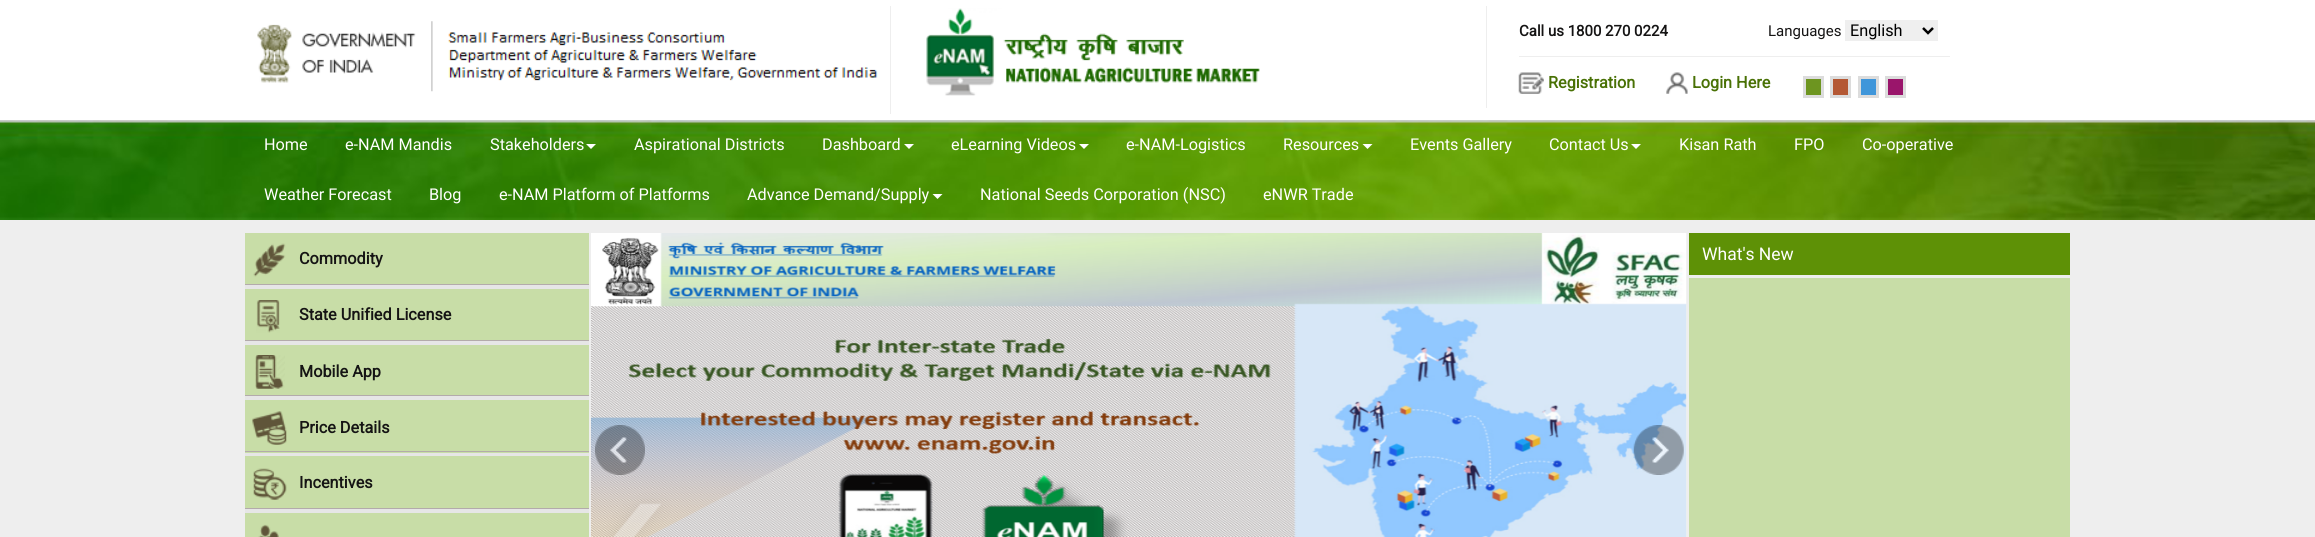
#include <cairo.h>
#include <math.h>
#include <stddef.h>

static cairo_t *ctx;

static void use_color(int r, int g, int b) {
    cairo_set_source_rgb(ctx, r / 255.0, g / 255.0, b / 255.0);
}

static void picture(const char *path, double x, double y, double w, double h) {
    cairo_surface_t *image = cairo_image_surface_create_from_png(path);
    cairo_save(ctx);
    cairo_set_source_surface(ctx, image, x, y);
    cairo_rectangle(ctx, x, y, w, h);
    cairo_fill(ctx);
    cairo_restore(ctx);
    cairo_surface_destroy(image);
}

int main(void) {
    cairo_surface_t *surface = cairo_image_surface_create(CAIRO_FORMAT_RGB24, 2315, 537);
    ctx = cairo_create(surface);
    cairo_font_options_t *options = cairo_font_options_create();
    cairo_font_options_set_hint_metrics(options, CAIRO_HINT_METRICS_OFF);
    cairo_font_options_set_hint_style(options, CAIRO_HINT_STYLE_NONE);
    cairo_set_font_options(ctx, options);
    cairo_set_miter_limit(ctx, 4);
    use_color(255, 255, 255);
    cairo_paint(ctx);
    picture("img1.png", 257, 21, 621, 71);
    use_color(238, 238, 238);
    cairo_rectangle(ctx, 890, 6, 1, 108);
    cairo_fill(ctx);
    picture("img2.png", 926, 8, 334, 88);
    cairo_rectangle(ctx, 1486, 6, 1, 102);
    cairo_fill(ctx);
    cairo_rectangle(ctx, 1519, 56, 431, 1);
    cairo_fill(ctx);
    cairo_select_font_face(ctx, "Roboto", CAIRO_FONT_SLANT_NORMAL, CAIRO_FONT_WEIGHT_BOLD);
    cairo_set_font_size(ctx, 15);
    use_color(21, 20, 20);
    cairo_move_to(ctx, 1519, 36);
    cairo_show_text(ctx, "Call us 1800 270 0224");
    cairo_select_font_face(ctx, "Roboto", CAIRO_FONT_SLANT_NORMAL, CAIRO_FONT_WEIGHT_NORMAL);
    cairo_move_to(ctx, 1768, 36);
    cairo_show_text(ctx, "Languages");
    use_color(239, 239, 239);
    cairo_rectangle(ctx, 1845, 20, 93, 21);
    cairo_fill(ctx);
    cairo_new_path(ctx);
    cairo_move_to(ctx, 1923, 28);
    cairo_line_to(ctx, 1928, 33);
    cairo_line_to(ctx, 1933, 28);
    use_color(0, 0, 0);
    cairo_set_line_width(ctx, 2.5);
    cairo_stroke(ctx);
    cairo_set_font_size(ctx, 16.25);
    cairo_move_to(ctx, 1850, 36);
    cairo_show_text(ctx, "English");
    picture("img3.png", 1518, 72, 26, 22);
    cairo_select_font_face(ctx, "Roboto", CAIRO_FONT_SLANT_NORMAL, CAIRO_FONT_WEIGHT_BOLD);
    use_color(73, 113, 5);
    cairo_move_to(ctx, 1548, 88);
    cairo_show_text(ctx, "Registration");
    picture("img4.png", 1666, 72, 22, 22);
    cairo_move_to(ctx, 1692, 88);
    cairo_show_text(ctx, "Login Here");
    use_color(109, 149, 32);
    cairo_rectangle(ctx, 1804.5, 77.5, 18, 19);
    cairo_fill_preserve(ctx);
    use_color(220, 220, 220);
    cairo_set_line_width(ctx, 3);
    cairo_stroke(ctx);
    use_color(180, 88, 52);
    cairo_rectangle(ctx, 1831.5, 77.5, 18, 19);
    cairo_fill_preserve(ctx);
    use_color(220, 220, 220);
    cairo_stroke(ctx);
    use_color(63, 150, 218);
    cairo_rectangle(ctx, 1859.5, 77.5, 18, 19);
    cairo_fill_preserve(ctx);
    use_color(220, 220, 220);
    cairo_stroke(ctx);
    use_color(154, 21, 107);
    cairo_rectangle(ctx, 1886.5, 77.5, 18, 19);
    cairo_fill_preserve(ctx);
    use_color(220, 220, 220);
    cairo_stroke(ctx);
    picture("img5.png", 0, 120, 2315, 100);
    cairo_select_font_face(ctx, "Roboto", CAIRO_FONT_SLANT_NORMAL, CAIRO_FONT_WEIGHT_NORMAL);
    use_color(255, 255, 255);
    cairo_move_to(ctx, 264, 150);
    cairo_show_text(ctx, "Home");
    cairo_move_to(ctx, 345, 150);
    cairo_show_text(ctx, "e-NAM Mandis");
    cairo_move_to(ctx, 490, 150);
    cairo_show_text(ctx, "Stakeholders");
    cairo_new_path(ctx);
    cairo_move_to(ctx, 586, 144);
    cairo_line_to(ctx, 596, 144);
    cairo_line_to(ctx, 591, 149);
    cairo_close_path(ctx);
    cairo_fill(ctx);
    cairo_move_to(ctx, 634, 150);
    cairo_show_text(ctx, "Aspirational Districts");
    cairo_move_to(ctx, 822, 150);
    cairo_show_text(ctx, "Dashboard");
    cairo_new_path(ctx);
    cairo_move_to(ctx, 904, 144);
    cairo_line_to(ctx, 914, 144);
    cairo_line_to(ctx, 909, 149);
    cairo_close_path(ctx);
    cairo_fill(ctx);
    cairo_move_to(ctx, 951, 150);
    cairo_show_text(ctx, "eLearning Videos");
    cairo_new_path(ctx);
    cairo_move_to(ctx, 1079, 144);
    cairo_line_to(ctx, 1089, 144);
    cairo_line_to(ctx, 1084, 149);
    cairo_close_path(ctx);
    cairo_fill(ctx);
    cairo_move_to(ctx, 1126, 150);
    cairo_show_text(ctx, "e-NAM-Logistics");
    cairo_move_to(ctx, 1283, 150);
    cairo_show_text(ctx, "Resources");
    cairo_new_path(ctx);
    cairo_move_to(ctx, 1362.5, 144);
    cairo_line_to(ctx, 1372.5, 144);
    cairo_line_to(ctx, 1367.5, 149);
    cairo_close_path(ctx);
    cairo_fill(ctx);
    cairo_move_to(ctx, 1410, 150);
    cairo_show_text(ctx, "Events Gallery");
    cairo_move_to(ctx, 1549, 150);
    cairo_show_text(ctx, "Contact Us");
    cairo_new_path(ctx);
    cairo_move_to(ctx, 1631, 144);
    cairo_line_to(ctx, 1641, 144);
    cairo_line_to(ctx, 1636, 149);
    cairo_close_path(ctx);
    cairo_fill(ctx);
    cairo_move_to(ctx, 1679, 150);
    cairo_show_text(ctx, "Kisan Rath");
    cairo_move_to(ctx, 1794, 150);
    cairo_show_text(ctx, "FPO");
    cairo_move_to(ctx, 1862, 150);
    cairo_show_text(ctx, "Co-operative");
    cairo_move_to(ctx, 264, 200);
    cairo_show_text(ctx, "Weather Forecast");
    cairo_move_to(ctx, 429, 200);
    cairo_show_text(ctx, "Blog");
    cairo_move_to(ctx, 499, 200);
    cairo_show_text(ctx, "e-NAM Platform of Platforms");
    cairo_move_to(ctx, 747, 200);
    cairo_show_text(ctx, "Advance Demand/Supply");
    cairo_new_path(ctx);
    cairo_move_to(ctx, 932.5, 194);
    cairo_line_to(ctx, 942.5, 194);
    cairo_line_to(ctx, 937.5, 199);
    cairo_close_path(ctx);
    cairo_fill(ctx);
    cairo_move_to(ctx, 980, 200);
    cairo_show_text(ctx, "National Seeds Corporation (NSC)");
    cairo_move_to(ctx, 1263, 200);
    cairo_show_text(ctx, "eNWR Trade");
    use_color(238, 238, 238);
    cairo_rectangle(ctx, 0, 220, 2315, 317);
    cairo_fill(ctx);
    use_color(230, 230, 230);
    cairo_rectangle(ctx, 245, 285, 344, 228);
    cairo_fill(ctx);
    use_color(200, 221, 167);
    cairo_rectangle(ctx, 245, 233, 344, 51);
    cairo_fill(ctx);
    use_color(179, 171, 171);
    cairo_rectangle(ctx, 245, 284, 344, 1);
    cairo_fill(ctx);
    picture("img6.png", 253, 243, 33, 34);
    cairo_select_font_face(ctx, "Roboto", CAIRO_FONT_SLANT_NORMAL, CAIRO_FONT_WEIGHT_BOLD);
    use_color(21, 20, 20);
    cairo_move_to(ctx, 299, 264);
    cairo_show_text(ctx, "Commodity");
    use_color(200, 221, 167);
    cairo_rectangle(ctx, 245, 289, 344, 51);
    cairo_fill(ctx);
    use_color(179, 171, 171);
    cairo_rectangle(ctx, 245, 340, 344, 1);
    cairo_fill(ctx);
    picture("img7.png", 256, 300, 24, 33);
    use_color(21, 20, 20);
    cairo_move_to(ctx, 299, 320);
    cairo_show_text(ctx, "State Unified License");
    use_color(200, 221, 167);
    cairo_rectangle(ctx, 245, 345, 344, 50);
    cairo_fill(ctx);
    use_color(179, 171, 171);
    cairo_rectangle(ctx, 245, 395, 344, 1);
    cairo_fill(ctx);
    picture("img8.png", 255, 355, 30, 34);
    use_color(21, 20, 20);
    cairo_move_to(ctx, 299, 377);
    cairo_show_text(ctx, "Mobile App");
    use_color(200, 221, 167);
    cairo_rectangle(ctx, 245, 400, 344, 53);
    cairo_fill(ctx);
    use_color(179, 171, 171);
    cairo_rectangle(ctx, 245, 451, 344, 1);
    cairo_fill(ctx);
    picture("img9.png", 252, 411, 35, 34);
    use_color(21, 20, 20);
    cairo_move_to(ctx, 299, 433);
    cairo_show_text(ctx, "Price Details");
    use_color(200, 221, 167);
    cairo_rectangle(ctx, 245, 456, 344, 52);
    cairo_fill(ctx);
    use_color(179, 171, 171);
    cairo_rectangle(ctx, 245, 508, 344, 1);
    cairo_fill(ctx);
    picture("img10.png", 253, 468, 34, 32);
    use_color(21, 20, 20);
    cairo_move_to(ctx, 299, 488);
    cairo_show_text(ctx, "Incentives");
    use_color(200, 221, 167);
    cairo_rectangle(ctx, 245, 513, 344, 24);
    cairo_fill(ctx);
    picture("img11.png", 258, 524, 21, 13);
    picture("img12.png", 591, 233, 1096, 304);
    picture("img13.png", 595, 425, 50, 50);
    picture("img14.png", 1633, 425, 51, 50);
    use_color(94, 145, 6);
    cairo_rectangle(ctx, 1689, 233, 381, 42);
    cairo_fill(ctx);
    cairo_select_font_face(ctx, "Roboto", CAIRO_FONT_SLANT_NORMAL, CAIRO_FONT_WEIGHT_NORMAL);
    cairo_set_font_size(ctx, 17.5);
    use_color(255, 255, 255);
    cairo_move_to(ctx, 1702, 260);
    cairo_show_text(ctx, "What's New");
    use_color(200, 221, 167);
    cairo_rectangle(ctx, 1689, 278, 381, 259);
    cairo_fill(ctx);
    cairo_surface_write_to_png(surface, "result.png");
    cairo_font_options_destroy(options);
    cairo_destroy(ctx);
    cairo_surface_destroy(surface);
    return 0;
}
